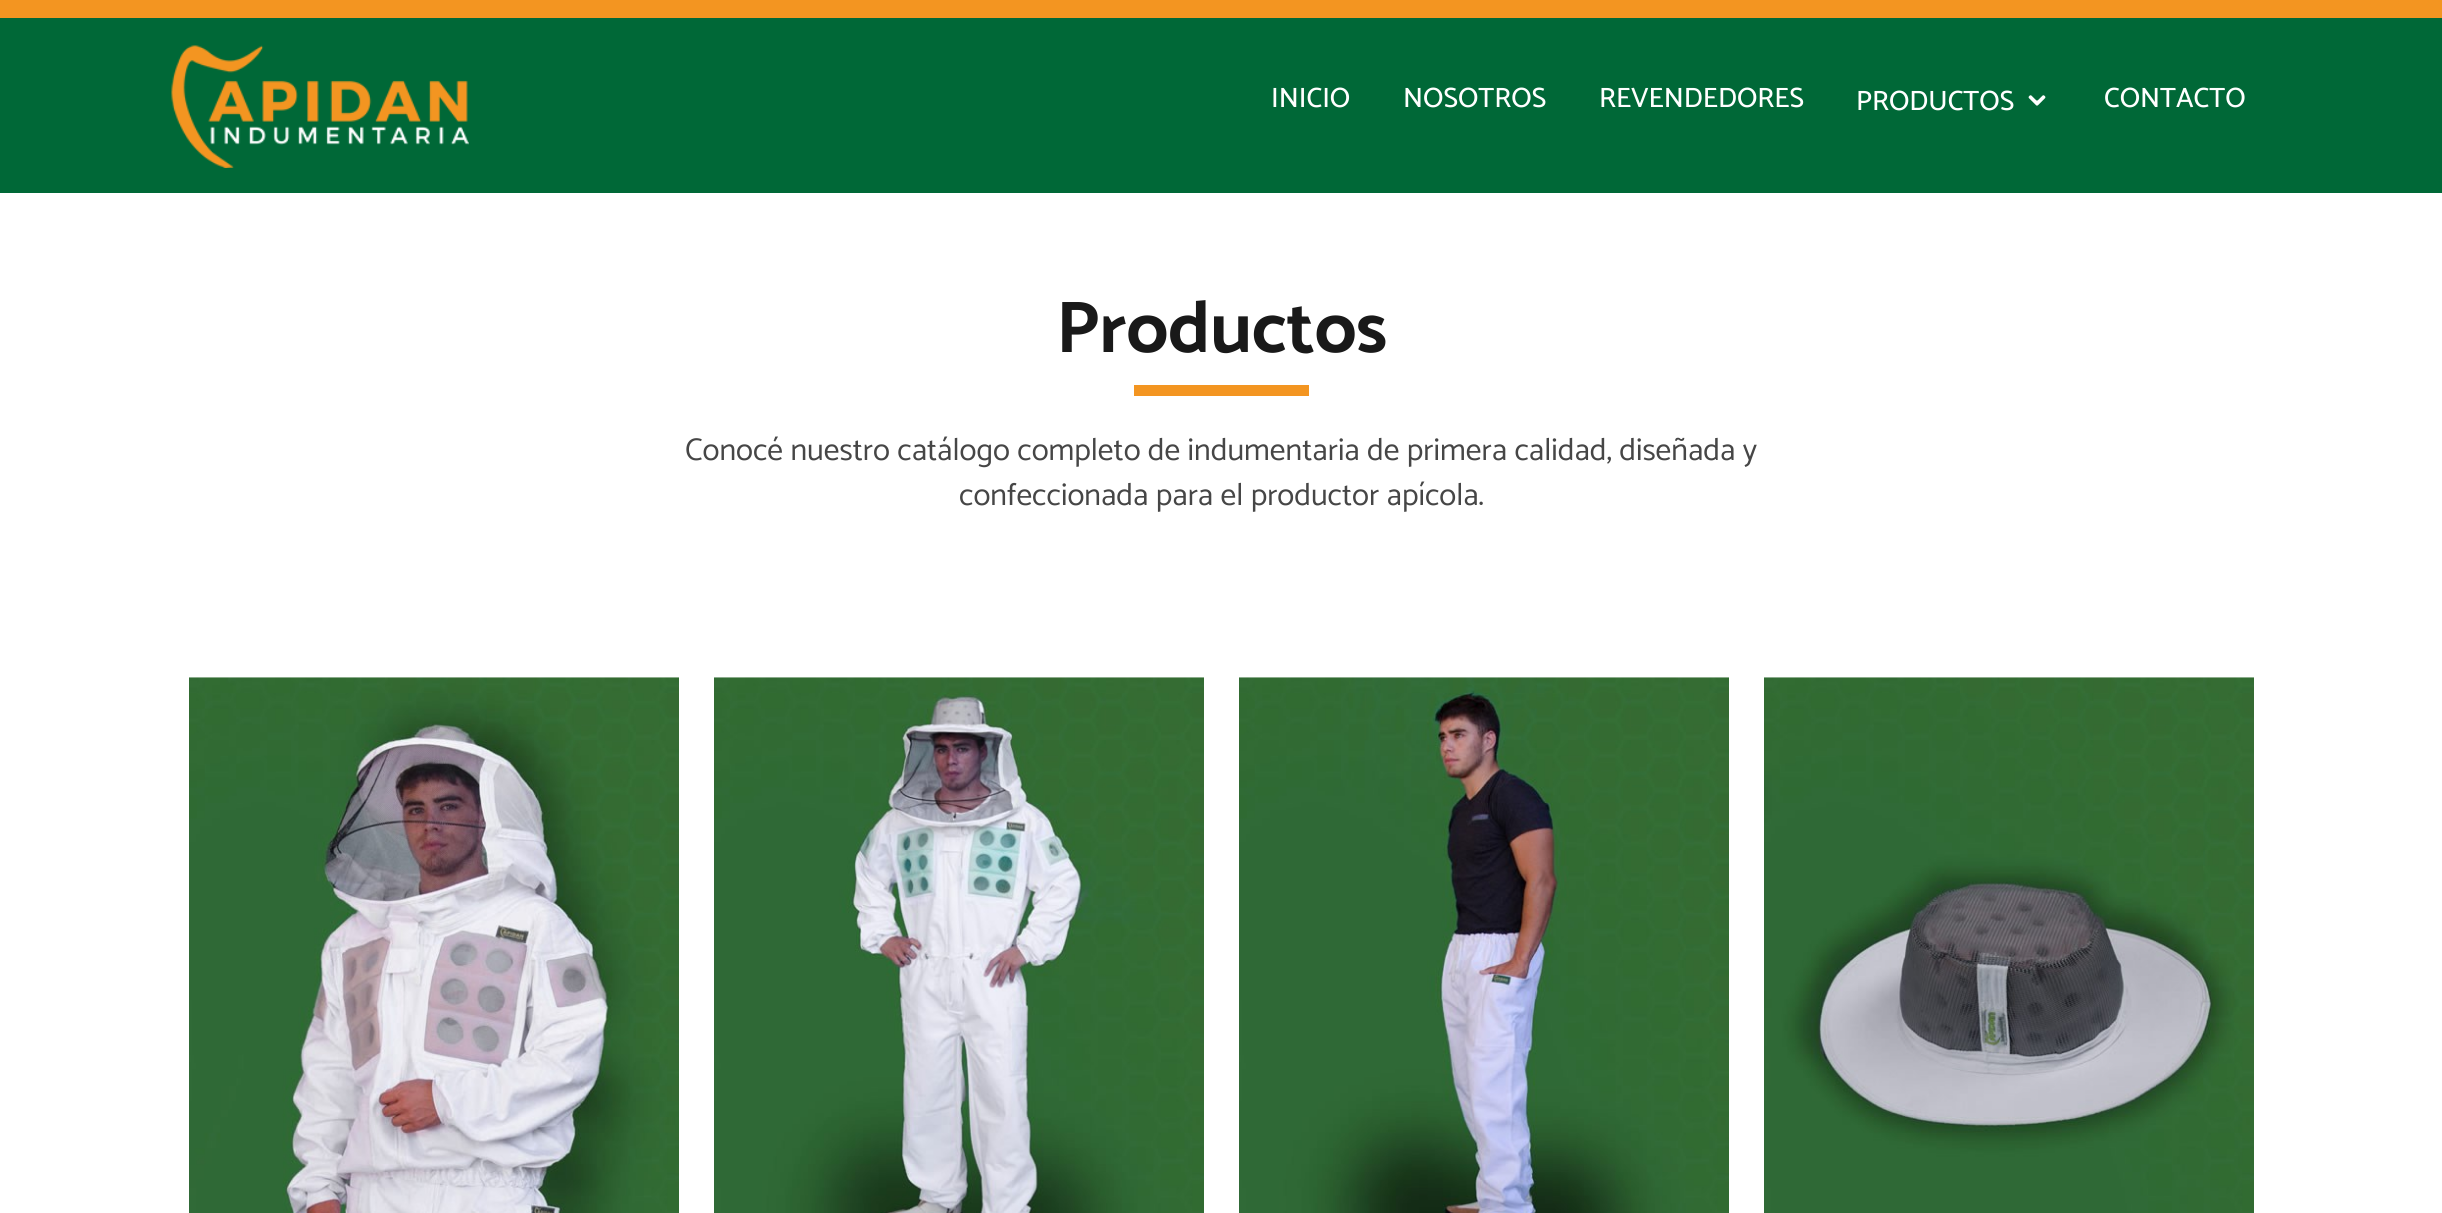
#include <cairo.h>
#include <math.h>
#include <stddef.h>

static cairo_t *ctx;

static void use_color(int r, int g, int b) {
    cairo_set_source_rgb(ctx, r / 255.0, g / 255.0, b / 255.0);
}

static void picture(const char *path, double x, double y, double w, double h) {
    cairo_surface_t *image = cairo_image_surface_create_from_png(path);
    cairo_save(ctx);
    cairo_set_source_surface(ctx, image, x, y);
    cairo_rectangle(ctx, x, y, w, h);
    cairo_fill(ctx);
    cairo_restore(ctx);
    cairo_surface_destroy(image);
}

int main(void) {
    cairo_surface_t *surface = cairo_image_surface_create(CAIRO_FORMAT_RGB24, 2442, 1213);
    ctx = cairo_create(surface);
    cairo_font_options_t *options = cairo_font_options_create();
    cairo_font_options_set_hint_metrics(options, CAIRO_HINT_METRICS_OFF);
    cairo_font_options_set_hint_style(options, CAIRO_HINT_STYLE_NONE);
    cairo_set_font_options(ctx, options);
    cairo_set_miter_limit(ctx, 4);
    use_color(255, 255, 255);
    cairo_paint(ctx);
    use_color(0, 104, 55);
    cairo_rectangle(ctx, 0, 18, 2442, 175);
    cairo_fill(ctx);
    use_color(243, 149, 33);
    cairo_rectangle(ctx, 0, 0, 2442, 18);
    cairo_fill(ctx);
    picture("img1.png", 171, 45, 298, 123);
    cairo_select_font_face(ctx, "Catamaran Medium", CAIRO_FONT_SLANT_NORMAL, CAIRO_FONT_WEIGHT_NORMAL);
    cairo_set_font_size(ctx, 28);
    use_color(255, 255, 255);
    cairo_move_to(ctx, 1271, 107);
    cairo_show_text(ctx, "INICIO");
    cairo_move_to(ctx, 1403, 107);
    cairo_show_text(ctx, "NOSOTROS");
    cairo_move_to(ctx, 1599, 107);
    cairo_show_text(ctx, "REVENDEDORES");
    cairo_move_to(ctx, 1856, 110);
    cairo_show_text(ctx, "PRODUCTOS");
    picture("img2.png", 2028, 95, 18, 11);
    cairo_move_to(ctx, 2104, 107);
    cairo_show_text(ctx, "CONTACTO");
    cairo_select_font_face(ctx, "Catamaran", CAIRO_FONT_SLANT_NORMAL, CAIRO_FONT_WEIGHT_BOLD);
    cairo_set_font_size(ctx, 73.5);
    use_color(25, 25, 25);
    cairo_move_to(ctx, 1056, 352);
    cairo_show_text(ctx, "Productos");
    use_color(243, 149, 33);
    cairo_rectangle(ctx, 1134, 385, 175, 11);
    cairo_fill(ctx);
    cairo_select_font_face(ctx, "Catamaran", CAIRO_FONT_SLANT_NORMAL, CAIRO_FONT_WEIGHT_NORMAL);
    cairo_set_font_size(ctx, 31.5);
    use_color(70, 70, 70);
    cairo_move_to(ctx, 685, 460);
    cairo_show_text(ctx, "Conocé nuestro catálogo completo de indumentaria de primera calidad, diseñada y");
    cairo_move_to(ctx, 959, 505);
    cairo_show_text(ctx, "confeccionada para el productor apícola.");
    picture("img3.png", 189, 677, 490, 536);
    picture("img4.png", 714, 677, 490, 536);
    picture("img5.png", 1239, 677, 490, 536);
    picture("img6.png", 1764, 677, 490, 536);
    cairo_surface_write_to_png(surface, "result.png");
    cairo_font_options_destroy(options);
    cairo_destroy(ctx);
    cairo_surface_destroy(surface);
    return 0;
}
